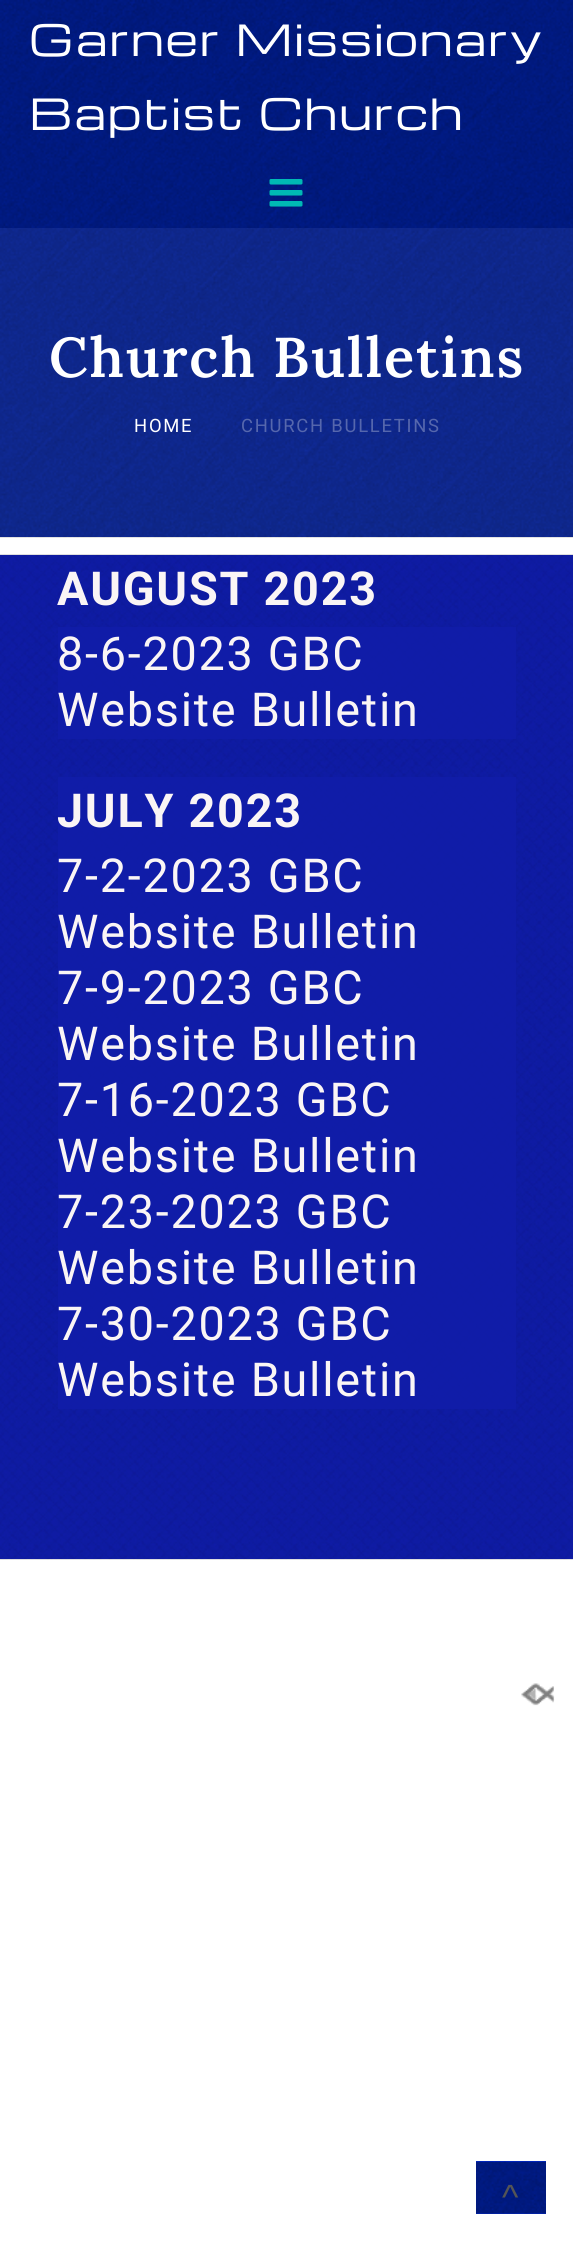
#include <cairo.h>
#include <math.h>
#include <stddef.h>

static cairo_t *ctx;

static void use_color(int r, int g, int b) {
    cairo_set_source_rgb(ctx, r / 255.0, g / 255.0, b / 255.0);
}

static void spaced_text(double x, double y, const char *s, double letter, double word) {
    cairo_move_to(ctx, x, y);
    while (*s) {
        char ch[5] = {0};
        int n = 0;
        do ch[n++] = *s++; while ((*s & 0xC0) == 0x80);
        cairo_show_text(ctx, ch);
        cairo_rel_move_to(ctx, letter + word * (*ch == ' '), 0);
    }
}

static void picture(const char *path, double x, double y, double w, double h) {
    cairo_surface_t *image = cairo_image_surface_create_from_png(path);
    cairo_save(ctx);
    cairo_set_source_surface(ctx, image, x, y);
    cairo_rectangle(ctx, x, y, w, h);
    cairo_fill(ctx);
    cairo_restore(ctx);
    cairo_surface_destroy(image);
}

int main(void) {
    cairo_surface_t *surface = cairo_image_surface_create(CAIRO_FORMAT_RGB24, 573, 2241);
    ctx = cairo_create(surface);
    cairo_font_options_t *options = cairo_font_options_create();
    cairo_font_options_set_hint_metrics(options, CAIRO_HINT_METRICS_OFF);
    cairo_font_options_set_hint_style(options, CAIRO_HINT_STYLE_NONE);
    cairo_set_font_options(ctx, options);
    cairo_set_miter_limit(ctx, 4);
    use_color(255, 255, 255);
    cairo_paint(ctx);
    use_color(0, 51, 255);
    cairo_rectangle(ctx, 0, 0, 573, 228);
    cairo_fill(ctx);
    picture("img1.png", 0, 0, 573, 228);
    cairo_select_font_face(ctx, "Michroma", CAIRO_FONT_SLANT_NORMAL, CAIRO_FONT_WEIGHT_NORMAL);
    cairo_set_font_size(ctx, 42);
    use_color(255, 255, 255);
    spaced_text(29, 56, "Garner Missionary", 1.75, 0);
    spaced_text(29, 130, "Baptist Church", 1.75, 0);
    picture("img2.png", 269, 179, 34, 28);
    use_color(26, 71, 255);
    cairo_rectangle(ctx, 0, 228, 573, 309);
    cairo_fill(ctx);
    picture("img3.png", 0, 228, 573, 310);
    cairo_select_font_face(ctx, "Lora SemiBold", CAIRO_FONT_SLANT_NORMAL, CAIRO_FONT_WEIGHT_NORMAL);
    cairo_set_font_size(ctx, 56);
    use_color(255, 255, 255);
    spaced_text(49, 377, "Church Bulletins", 1.75, 0);
    cairo_select_font_face(ctx, "Roboto", CAIRO_FONT_SLANT_NORMAL, CAIRO_FONT_WEIGHT_NORMAL);
    cairo_set_font_size(ctx, 18.4);
    spaced_text(134, 432, "HOME", 1.75, 0);
    use_color(86, 103, 173);
    spaced_text(241, 432, "CHURCH BULLETINS", 1.75, 0);
    use_color(16, 26, 178);
    cairo_rectangle(ctx, 0, 555, 573, 1004);
    cairo_fill(ctx);
    picture("img4.png", 0, 554, 573, 1006);
    picture("img5.png", 0, 555, 573, 1004);
    cairo_select_font_face(ctx, "Roboto", CAIRO_FONT_SLANT_NORMAL, CAIRO_FONT_WEIGHT_BOLD);
    cairo_set_font_size(ctx, 46.75);
    use_color(250, 245, 245);
    spaced_text(57, 605, "AUGUST 2023", 1.75, 0);
    cairo_set_source_rgba(ctx, 0.063, 0.114, 0.659, 0.89);
    cairo_rectangle(ctx, 58, 627, 458, 112);
    cairo_fill(ctx);
    cairo_select_font_face(ctx, "Roboto", CAIRO_FONT_SLANT_NORMAL, CAIRO_FONT_WEIGHT_NORMAL);
    use_color(250, 245, 245);
    spaced_text(57, 670, "8-6-2023 GBC", 1.75, 0);
    spaced_text(57, 726, "Website Bulletin", 1.75, 0);
    cairo_set_source_rgba(ctx, 0.063, 0.114, 0.659, 0.89);
    cairo_rectangle(ctx, 58, 777, 458, 72);
    cairo_fill(ctx);
    cairo_select_font_face(ctx, "Roboto", CAIRO_FONT_SLANT_NORMAL, CAIRO_FONT_WEIGHT_BOLD);
    use_color(250, 245, 245);
    spaced_text(57, 827, "JULY 2023", 1.75, 0);
    cairo_set_source_rgba(ctx, 0.063, 0.114, 0.659, 0.89);
    cairo_rectangle(ctx, 58, 849, 458, 112);
    cairo_fill(ctx);
    cairo_select_font_face(ctx, "Roboto", CAIRO_FONT_SLANT_NORMAL, CAIRO_FONT_WEIGHT_NORMAL);
    use_color(250, 245, 245);
    spaced_text(57, 892, "7-2-2023 GBC", 1.75, 0);
    spaced_text(57, 948, "Website Bulletin", 1.75, 0);
    cairo_set_source_rgba(ctx, 0.063, 0.114, 0.659, 0.89);
    cairo_rectangle(ctx, 58, 961, 458, 112);
    cairo_fill(ctx);
    use_color(250, 245, 245);
    spaced_text(57, 1004, "7-9-2023 GBC", 1.75, 0);
    spaced_text(57, 1060, "Website Bulletin", 1.75, 0);
    cairo_set_source_rgba(ctx, 0.063, 0.114, 0.659, 0.89);
    cairo_rectangle(ctx, 58, 1073, 458, 112);
    cairo_fill(ctx);
    use_color(250, 245, 245);
    spaced_text(57, 1116, "7-16-2023 GBC", 1.75, 0);
    spaced_text(57, 1172, "Website Bulletin", 1.75, 0);
    cairo_set_source_rgba(ctx, 0.063, 0.114, 0.659, 0.89);
    cairo_rectangle(ctx, 58, 1185, 458, 112);
    cairo_fill(ctx);
    use_color(250, 245, 245);
    spaced_text(57, 1228, "7-23-2023 GBC", 1.75, 0);
    spaced_text(57, 1284, "Website Bulletin", 1.75, 0);
    cairo_set_source_rgba(ctx, 0.063, 0.114, 0.659, 0.89);
    cairo_rectangle(ctx, 58, 1297, 458, 112);
    cairo_fill(ctx);
    use_color(250, 245, 245);
    spaced_text(57, 1340, "7-30-2023 GBC", 1.75, 0);
    spaced_text(57, 1396, "Website Bulletin", 1.75, 0);
    picture("img6.png", 521, 1683, 34, 23);
    use_color(0, 51, 255);
    cairo_rectangle(ctx, 476, 2161, 70, 53);
    cairo_fill(ctx);
    picture("img7.png", 476, 2161, 70, 53);
    cairo_select_font_face(ctx, "Liberation Sans", CAIRO_FONT_SLANT_NORMAL, CAIRO_FONT_WEIGHT_NORMAL);
    cairo_set_font_size(ctx, 35);
    use_color(85, 85, 85);
    spaced_text(502, 2209, "^", 1.75, 0);
    cairo_surface_write_to_png(surface, "result.png");
    cairo_font_options_destroy(options);
    cairo_destroy(ctx);
    cairo_surface_destroy(surface);
    return 0;
}
